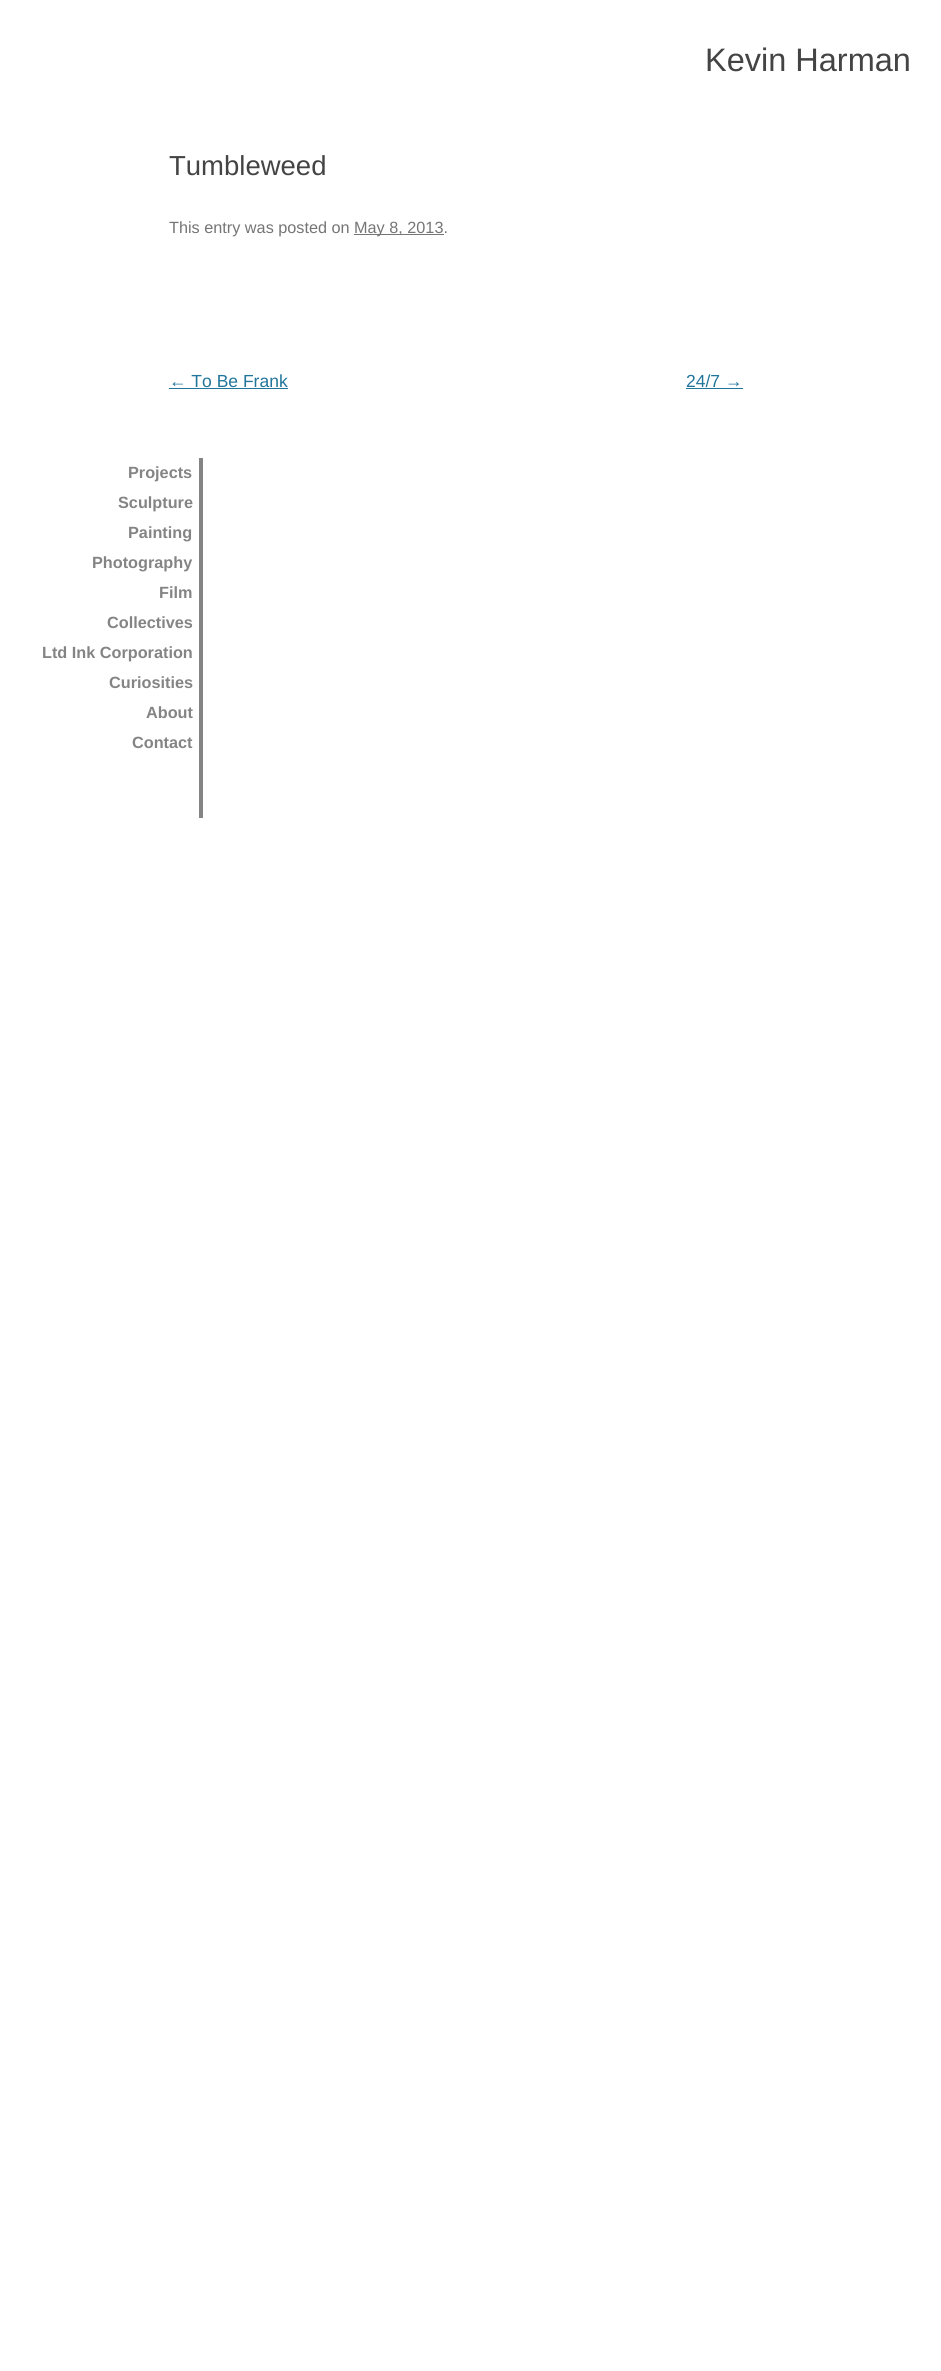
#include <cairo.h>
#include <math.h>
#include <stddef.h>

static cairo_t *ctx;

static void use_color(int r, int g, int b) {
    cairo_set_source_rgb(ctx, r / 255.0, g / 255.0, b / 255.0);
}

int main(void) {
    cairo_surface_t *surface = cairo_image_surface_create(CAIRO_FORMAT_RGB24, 941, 2371);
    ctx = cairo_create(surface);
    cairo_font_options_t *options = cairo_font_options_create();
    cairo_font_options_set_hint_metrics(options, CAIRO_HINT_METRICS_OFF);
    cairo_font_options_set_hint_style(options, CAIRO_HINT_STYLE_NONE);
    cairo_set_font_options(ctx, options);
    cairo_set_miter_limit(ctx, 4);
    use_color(255, 255, 255);
    cairo_paint(ctx);
    cairo_select_font_face(ctx, "Liberation Sans", CAIRO_FONT_SLANT_NORMAL, CAIRO_FONT_WEIGHT_NORMAL);
    cairo_set_font_size(ctx, 32.5);
    use_color(68, 68, 68);
    cairo_move_to(ctx, 705, 71);
    cairo_show_text(ctx, "Kevin Harman");
    cairo_set_font_size(ctx, 27.5);
    cairo_move_to(ctx, 169, 175);
    cairo_show_text(ctx, "Tumbleweed");
    cairo_set_font_size(ctx, 16.25);
    use_color(117, 117, 117);
    cairo_move_to(ctx, 169, 233);
    cairo_show_text(ctx, "This entry was posted on");
    cairo_rectangle(ctx, 354, 234, 90, 1);
    cairo_fill(ctx);
    cairo_move_to(ctx, 354, 233);
    cairo_show_text(ctx, "May 8, 2013.");
    cairo_set_font_size(ctx, 17.5);
    use_color(33, 117, 155);
    cairo_move_to(ctx, 169, 387);
    cairo_show_text(ctx, "← To Be Frank");
    cairo_rectangle(ctx, 169, 388, 119, 1);
    cairo_fill(ctx);
    cairo_move_to(ctx, 686, 387);
    cairo_show_text(ctx, "24/7 →");
    cairo_rectangle(ctx, 686, 388, 57, 1);
    cairo_fill(ctx);
    use_color(132, 132, 132);
    cairo_rectangle(ctx, 199, 458, 4, 360);
    cairo_fill(ctx);
    cairo_select_font_face(ctx, "Liberation Sans", CAIRO_FONT_SLANT_NORMAL, CAIRO_FONT_WEIGHT_BOLD);
    cairo_set_font_size(ctx, 16.25);
    cairo_move_to(ctx, 128, 478);
    cairo_show_text(ctx, "Projects");
    cairo_move_to(ctx, 118, 508);
    cairo_show_text(ctx, "Sculpture");
    cairo_move_to(ctx, 128, 538);
    cairo_show_text(ctx, "Painting");
    cairo_move_to(ctx, 92, 568);
    cairo_show_text(ctx, "Photography");
    cairo_move_to(ctx, 159, 598);
    cairo_show_text(ctx, "Film");
    cairo_move_to(ctx, 107, 628);
    cairo_show_text(ctx, "Collectives");
    cairo_move_to(ctx, 42, 658);
    cairo_show_text(ctx, "Ltd Ink Corporation");
    cairo_move_to(ctx, 109, 688);
    cairo_show_text(ctx, "Curiosities");
    cairo_move_to(ctx, 146, 718);
    cairo_show_text(ctx, "About");
    cairo_move_to(ctx, 132, 748);
    cairo_show_text(ctx, "Contact");
    cairo_surface_write_to_png(surface, "result.png");
    cairo_font_options_destroy(options);
    cairo_destroy(ctx);
    cairo_surface_destroy(surface);
    return 0;
}
